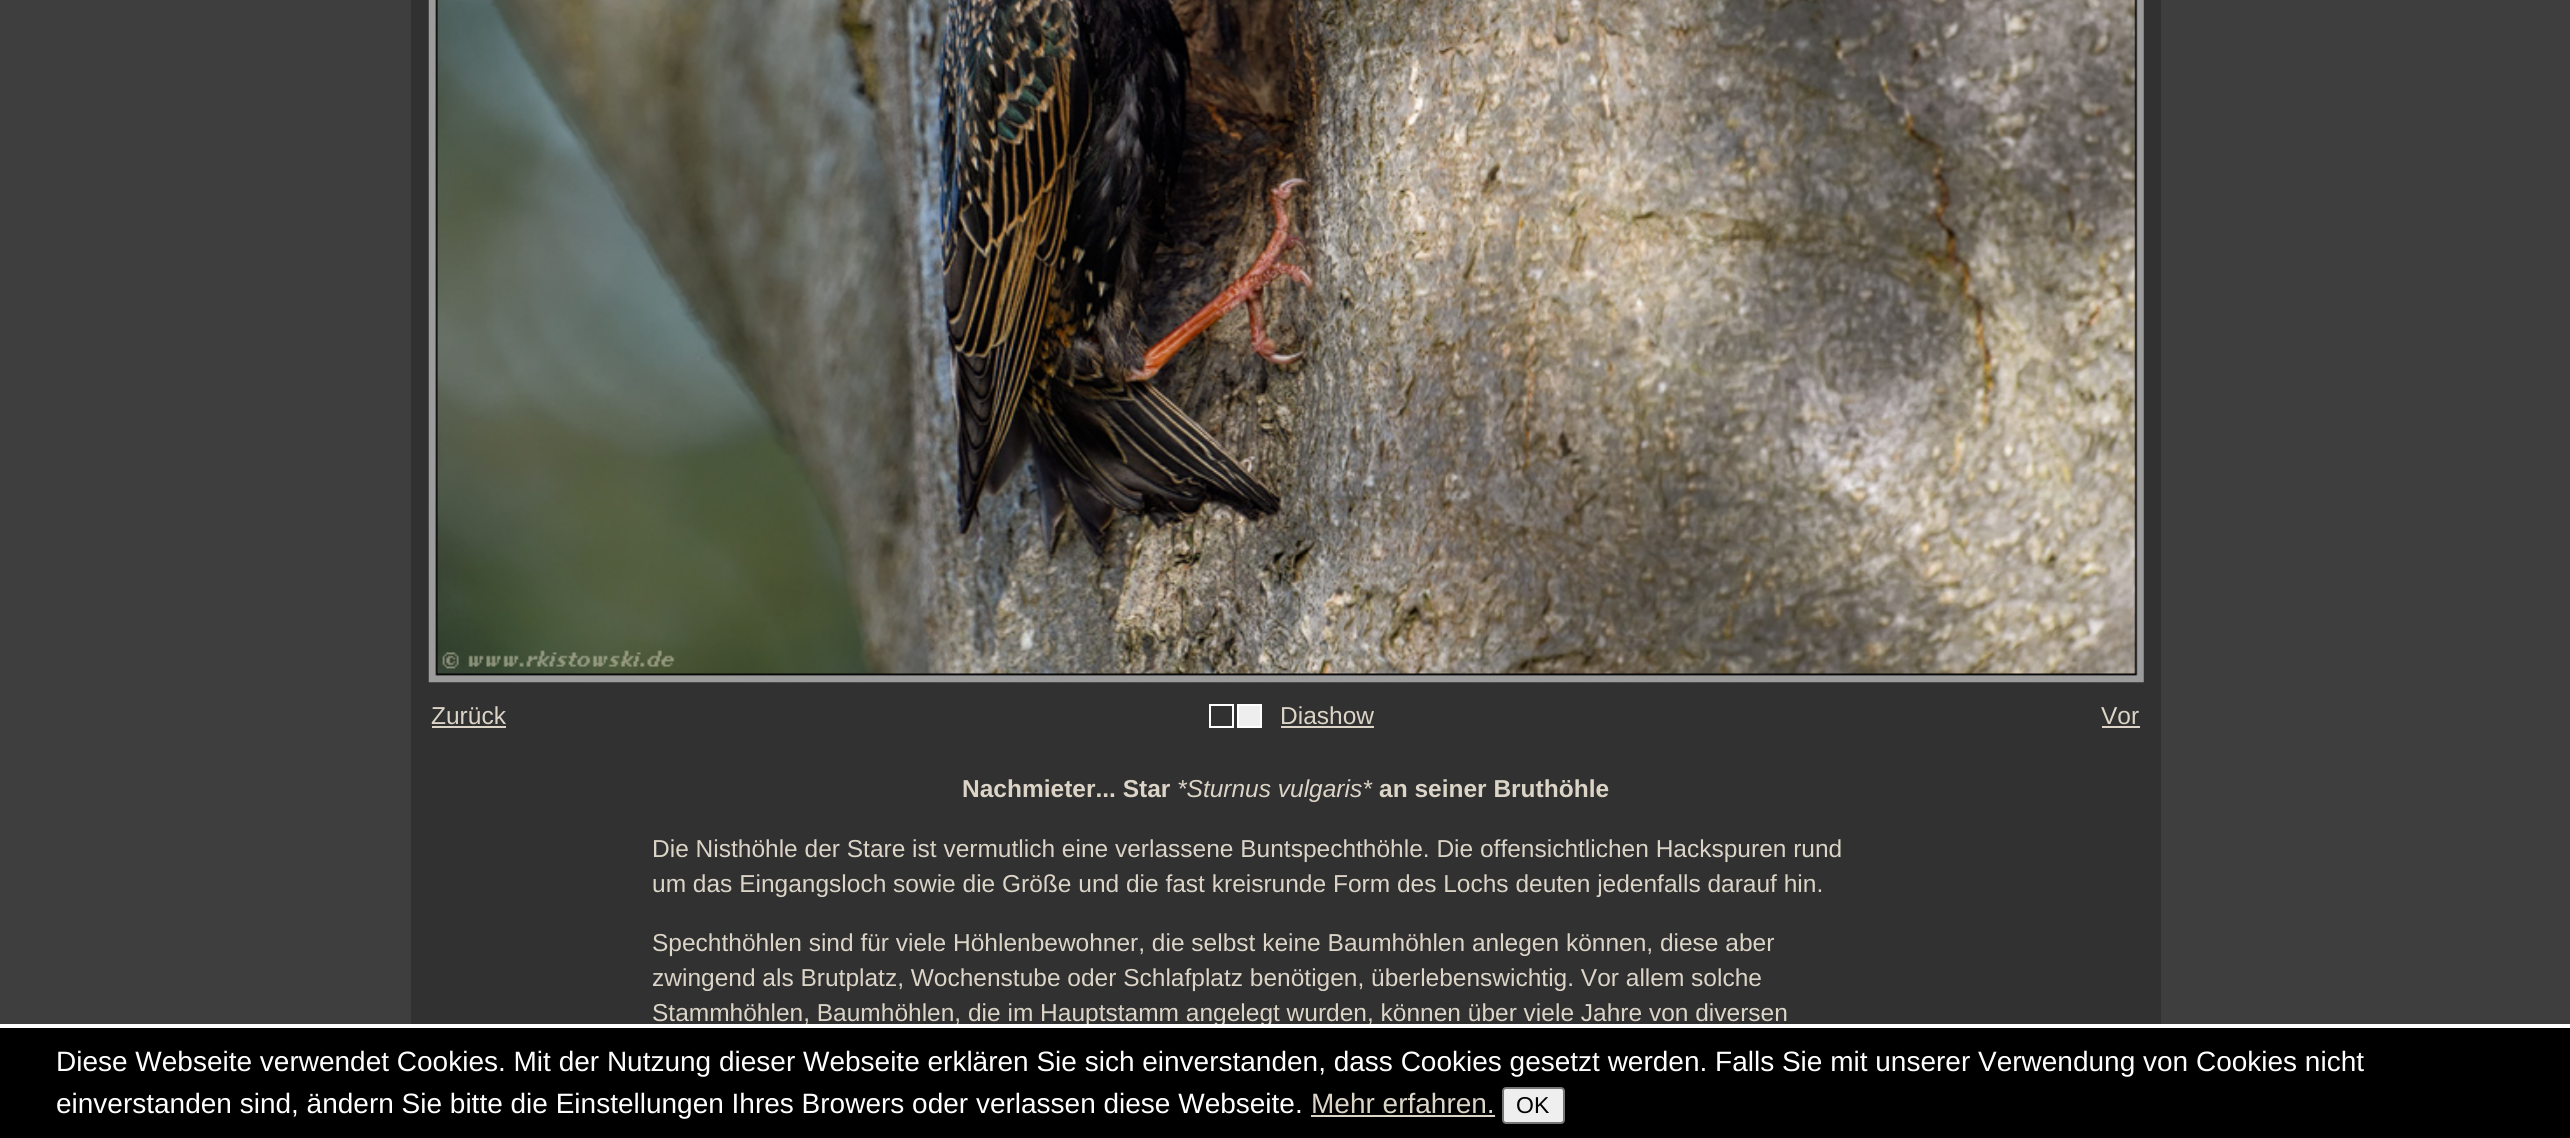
#include <cairo.h>
#include <math.h>
#include <stddef.h>

static cairo_t *ctx;

static void use_color(int r, int g, int b) {
    cairo_set_source_rgb(ctx, r / 255.0, g / 255.0, b / 255.0);
}

static void round_rect(double x, double y, double w, double h, double r) {
    cairo_new_sub_path(ctx);
    cairo_arc(ctx, x + w - r, y + h - r, r, 0, M_PI / 2);
    cairo_arc(ctx, x + r, y + h - r, r, M_PI / 2, M_PI);
    cairo_arc(ctx, x + r, y + r, r, M_PI, 1.5 * M_PI);
    cairo_arc(ctx, x + w - r, y + r, r, 1.5 * M_PI, 2 * M_PI);
    cairo_close_path(ctx);
}

static void picture(const char *path, double x, double y, double w, double h) {
    cairo_surface_t *image = cairo_image_surface_create_from_png(path);
    cairo_save(ctx);
    cairo_set_source_surface(ctx, image, x, y);
    cairo_rectangle(ctx, x, y, w, h);
    cairo_fill(ctx);
    cairo_restore(ctx);
    cairo_surface_destroy(image);
}

int main(void) {
    cairo_surface_t *surface = cairo_image_surface_create(CAIRO_FORMAT_RGB24, 2570, 1138);
    ctx = cairo_create(surface);
    cairo_font_options_t *options = cairo_font_options_create();
    cairo_font_options_set_hint_metrics(options, CAIRO_HINT_METRICS_OFF);
    cairo_font_options_set_hint_style(options, CAIRO_HINT_STYLE_NONE);
    cairo_set_font_options(ctx, options);
    cairo_set_miter_limit(ctx, 4);
    use_color(62, 62, 62);
    cairo_paint(ctx);
    use_color(49, 49, 49);
    cairo_rectangle(ctx, 411, 0, 1750, 1024);
    cairo_fill(ctx);
    picture("img1.png", 428, 0, 1716, 683);
    cairo_select_font_face(ctx, "Liberation Sans", CAIRO_FONT_SLANT_NORMAL, CAIRO_FONT_WEIGHT_NORMAL);
    cairo_set_font_size(ctx, 24.5);
    use_color(219, 212, 199);
    cairo_move_to(ctx, 431, 724);
    cairo_show_text(ctx, "Zurück");
    cairo_rectangle(ctx, 432, 726, 74, 2);
    cairo_fill(ctx);
    cairo_rectangle(ctx, 1210, 705, 23, 22);
    use_color(255, 255, 255);
    cairo_stroke(ctx);
    use_color(238, 238, 238);
    cairo_rectangle(ctx, 1238, 705, 23, 22);
    cairo_fill_preserve(ctx);
    use_color(255, 255, 255);
    cairo_stroke(ctx);
    use_color(219, 212, 199);
    cairo_move_to(ctx, 1280, 724);
    cairo_show_text(ctx, "Diashow");
    cairo_rectangle(ctx, 1281, 726, 93, 2);
    cairo_fill(ctx);
    cairo_move_to(ctx, 2101, 724);
    cairo_show_text(ctx, "Vor");
    cairo_rectangle(ctx, 2102, 726, 38, 2);
    cairo_fill(ctx);
    cairo_select_font_face(ctx, "Liberation Sans", CAIRO_FONT_SLANT_NORMAL, CAIRO_FONT_WEIGHT_BOLD);
    cairo_move_to(ctx, 962, 797);
    cairo_show_text(ctx, "Nachmieter... Star");
    cairo_select_font_face(ctx, "Liberation Sans", CAIRO_FONT_SLANT_ITALIC, CAIRO_FONT_WEIGHT_NORMAL);
    cairo_move_to(ctx, 1177, 797);
    cairo_show_text(ctx, "*Sturnus vulgaris*");
    cairo_select_font_face(ctx, "Liberation Sans", CAIRO_FONT_SLANT_NORMAL, CAIRO_FONT_WEIGHT_BOLD);
    cairo_move_to(ctx, 1379, 797);
    cairo_show_text(ctx, "an seiner Bruthöhle");
    cairo_select_font_face(ctx, "Liberation Sans", CAIRO_FONT_SLANT_NORMAL, CAIRO_FONT_WEIGHT_NORMAL);
    cairo_move_to(ctx, 652, 857);
    cairo_show_text(ctx, "Die Nisthöhle der Stare ist vermutlich eine verlassene Buntspechthöhle. Die offensichtlichen Hackspuren rund");
    cairo_move_to(ctx, 652, 892);
    cairo_show_text(ctx, "um das Eingangsloch sowie die Größe und die fast kreisrunde Form des Lochs deuten jedenfalls darauf hin.");
    cairo_move_to(ctx, 652, 951);
    cairo_show_text(ctx, "Spechthöhlen sind für viele Höhlenbewohner, die selbst keine Baumhöhlen anlegen können, diese aber");
    cairo_move_to(ctx, 652, 986);
    cairo_show_text(ctx, "zwingend als Brutplatz, Wochenstube oder Schlafplatz benötigen, überlebenswichtig. Vor allem solche");
    cairo_move_to(ctx, 652, 1021);
    cairo_show_text(ctx, "Stammhöhlen, Baumhöhlen, die im Hauptstamm angelegt wurden, können über viele Jahre von diversen");
    use_color(0, 0, 0);
    cairo_rectangle(ctx, 0, 1028, 2570, 110);
    cairo_fill(ctx);
    use_color(255, 255, 255);
    cairo_rectangle(ctx, 0, 1024, 2570, 4);
    cairo_fill(ctx);
    cairo_set_font_size(ctx, 28);
    cairo_move_to(ctx, 56, 1071);
    cairo_show_text(ctx, "Diese Webseite verwendet Cookies. Mit der Nutzung dieser Webseite erklären Sie sich einverstanden, dass Cookies gesetzt werden. Falls Sie mit unserer Verwendung von Cookies nicht");
    cairo_move_to(ctx, 56, 1113);
    cairo_show_text(ctx, "einverstanden sind, ändern Sie bitte die Einstellungen Ihres Browers oder verlassen diese Webseite.");
    use_color(219, 212, 199);
    cairo_move_to(ctx, 1311, 1113);
    cairo_show_text(ctx, "Mehr erfahren.");
    cairo_rectangle(ctx, 1311, 1115, 184, 2);
    cairo_fill(ctx);
    use_color(239, 239, 239);
    round_rect(1503, 1088, 61, 35, 3);
    cairo_fill_preserve(ctx);
    use_color(118, 118, 118);
    cairo_stroke(ctx);
    cairo_set_font_size(ctx, 23);
    use_color(0, 0, 0);
    cairo_move_to(ctx, 1516, 1113);
    cairo_show_text(ctx, "OK");
    cairo_surface_write_to_png(surface, "result.png");
    cairo_font_options_destroy(options);
    cairo_destroy(ctx);
    cairo_surface_destroy(surface);
    return 0;
}
